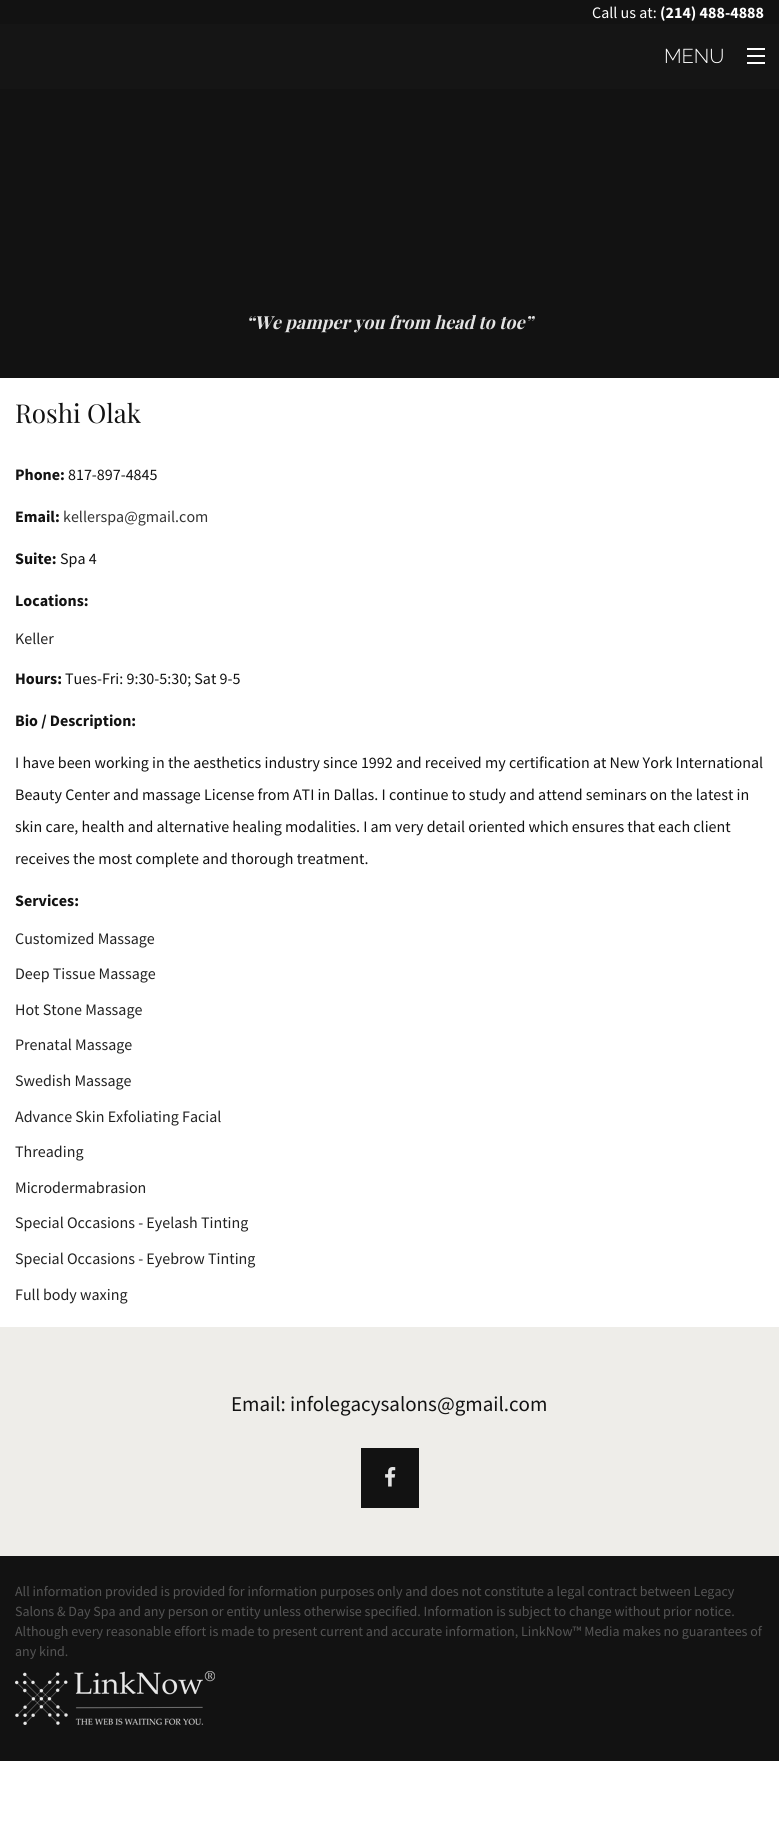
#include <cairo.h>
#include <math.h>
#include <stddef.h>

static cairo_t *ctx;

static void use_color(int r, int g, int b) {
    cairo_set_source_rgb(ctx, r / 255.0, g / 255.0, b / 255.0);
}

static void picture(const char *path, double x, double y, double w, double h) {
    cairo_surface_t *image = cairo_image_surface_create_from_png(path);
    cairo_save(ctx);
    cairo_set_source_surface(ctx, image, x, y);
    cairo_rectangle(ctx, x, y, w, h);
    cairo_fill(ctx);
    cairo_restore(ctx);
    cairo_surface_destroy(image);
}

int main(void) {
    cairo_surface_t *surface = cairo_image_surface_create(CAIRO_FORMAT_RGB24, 779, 1848);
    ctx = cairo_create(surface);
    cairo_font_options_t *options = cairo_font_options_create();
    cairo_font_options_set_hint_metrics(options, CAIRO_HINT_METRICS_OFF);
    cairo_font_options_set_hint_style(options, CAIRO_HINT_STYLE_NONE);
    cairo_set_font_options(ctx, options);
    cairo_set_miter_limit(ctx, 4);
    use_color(255, 255, 255);
    cairo_paint(ctx);
    use_color(18, 18, 18);
    cairo_rectangle(ctx, 0, 0, 779, 378);
    cairo_fill(ctx);
    cairo_select_font_face(ctx, "Source Sans Pro", CAIRO_FONT_SLANT_NORMAL, CAIRO_FONT_WEIGHT_NORMAL);
    cairo_set_font_size(ctx, 16);
    use_color(255, 255, 255);
    cairo_move_to(ctx, 592, 18);
    cairo_show_text(ctx, "Call us at:");
    cairo_select_font_face(ctx, "Source Sans Pro", CAIRO_FONT_SLANT_NORMAL, CAIRO_FONT_WEIGHT_BOLD);
    cairo_move_to(ctx, 660, 18);
    cairo_show_text(ctx, "(214) 488-4888");
    use_color(21, 21, 21);
    cairo_rectangle(ctx, 0, 24, 779, 65);
    cairo_fill(ctx);
    cairo_select_font_face(ctx, "Raleway Light", CAIRO_FONT_SLANT_NORMAL, CAIRO_FONT_WEIGHT_NORMAL);
    cairo_set_font_size(ctx, 20);
    use_color(255, 255, 255);
    cairo_move_to(ctx, 664, 63);
    cairo_show_text(ctx, "MENU");
    cairo_rectangle(ctx, 747, 62, 18, 2);
    cairo_fill(ctx);
    cairo_rectangle(ctx, 747, 55, 18, 2);
    cairo_fill(ctx);
    cairo_rectangle(ctx, 747, 48, 18, 2);
    cairo_fill(ctx);
    cairo_select_font_face(ctx, "Playfair Display", CAIRO_FONT_SLANT_ITALIC, CAIRO_FONT_WEIGHT_BOLD);
    cairo_set_font_size(ctx, 18);
    use_color(227, 227, 227);
    cairo_move_to(ctx, 246, 329);
    cairo_show_text(ctx, "“We pamper you from head to toe”");
    cairo_select_font_face(ctx, "Playfair Display", CAIRO_FONT_SLANT_NORMAL, CAIRO_FONT_WEIGHT_NORMAL);
    cairo_set_font_size(ctx, 26);
    use_color(18, 18, 18);
    cairo_move_to(ctx, 15, 423);
    cairo_show_text(ctx, "Roshi Olak");
    cairo_select_font_face(ctx, "Source Sans Pro", CAIRO_FONT_SLANT_NORMAL, CAIRO_FONT_WEIGHT_BOLD);
    cairo_set_font_size(ctx, 16);
    cairo_move_to(ctx, 15, 480);
    cairo_show_text(ctx, "Phone:");
    cairo_select_font_face(ctx, "Source Sans Pro", CAIRO_FONT_SLANT_NORMAL, CAIRO_FONT_WEIGHT_NORMAL);
    cairo_move_to(ctx, 68, 480);
    cairo_show_text(ctx, "817-897-4845");
    cairo_select_font_face(ctx, "Source Sans Pro", CAIRO_FONT_SLANT_NORMAL, CAIRO_FONT_WEIGHT_BOLD);
    cairo_move_to(ctx, 15, 522);
    cairo_show_text(ctx, "Email:");
    cairo_select_font_face(ctx, "Source Sans Pro", CAIRO_FONT_SLANT_NORMAL, CAIRO_FONT_WEIGHT_NORMAL);
    use_color(51, 51, 51);
    cairo_move_to(ctx, 63, 522);
    cairo_show_text(ctx, "kellerspa@gmail.com");
    cairo_select_font_face(ctx, "Source Sans Pro", CAIRO_FONT_SLANT_NORMAL, CAIRO_FONT_WEIGHT_BOLD);
    use_color(18, 18, 18);
    cairo_move_to(ctx, 15, 564);
    cairo_show_text(ctx, "Suite:");
    cairo_select_font_face(ctx, "Source Sans Pro", CAIRO_FONT_SLANT_NORMAL, CAIRO_FONT_WEIGHT_NORMAL);
    cairo_move_to(ctx, 60, 564);
    cairo_show_text(ctx, "Spa 4");
    cairo_select_font_face(ctx, "Source Sans Pro", CAIRO_FONT_SLANT_NORMAL, CAIRO_FONT_WEIGHT_BOLD);
    cairo_move_to(ctx, 15, 606);
    cairo_show_text(ctx, "Locations:");
    cairo_select_font_face(ctx, "Source Sans Pro", CAIRO_FONT_SLANT_NORMAL, CAIRO_FONT_WEIGHT_NORMAL);
    use_color(34, 34, 34);
    cairo_move_to(ctx, 15, 644);
    cairo_show_text(ctx, "Keller");
    cairo_select_font_face(ctx, "Source Sans Pro", CAIRO_FONT_SLANT_NORMAL, CAIRO_FONT_WEIGHT_BOLD);
    use_color(18, 18, 18);
    cairo_move_to(ctx, 15, 684);
    cairo_show_text(ctx, "Hours:");
    cairo_select_font_face(ctx, "Source Sans Pro", CAIRO_FONT_SLANT_NORMAL, CAIRO_FONT_WEIGHT_NORMAL);
    cairo_move_to(ctx, 65, 684);
    cairo_show_text(ctx, "Tues-Fri: 9:30-5:30; Sat 9-5");
    cairo_select_font_face(ctx, "Source Sans Pro", CAIRO_FONT_SLANT_NORMAL, CAIRO_FONT_WEIGHT_BOLD);
    cairo_move_to(ctx, 15, 726);
    cairo_show_text(ctx, "Bio / Description:");
    cairo_select_font_face(ctx, "Source Sans Pro", CAIRO_FONT_SLANT_NORMAL, CAIRO_FONT_WEIGHT_NORMAL);
    cairo_move_to(ctx, 15, 768);
    cairo_show_text(ctx, "I have been working in the aesthetics industry since 1992 and received my certification at New York International");
    cairo_move_to(ctx, 15, 800);
    cairo_show_text(ctx, "Beauty Center and massage License from ATI in Dallas. I continue to study and attend seminars on the latest in");
    cairo_move_to(ctx, 15, 832);
    cairo_show_text(ctx, "skin care, health and alternative healing modalities. I am very detail oriented which ensures that each client");
    cairo_move_to(ctx, 15, 864);
    cairo_show_text(ctx, "receives the most complete and thorough treatment.");
    cairo_select_font_face(ctx, "Source Sans Pro", CAIRO_FONT_SLANT_NORMAL, CAIRO_FONT_WEIGHT_BOLD);
    cairo_move_to(ctx, 15, 906);
    cairo_show_text(ctx, "Services:");
    cairo_select_font_face(ctx, "Source Sans Pro", CAIRO_FONT_SLANT_NORMAL, CAIRO_FONT_WEIGHT_NORMAL);
    use_color(34, 34, 34);
    cairo_move_to(ctx, 15, 944);
    cairo_show_text(ctx, "Customized Massage");
    cairo_move_to(ctx, 15, 979);
    cairo_show_text(ctx, "Deep Tissue Massage");
    cairo_move_to(ctx, 15, 1015);
    cairo_show_text(ctx, "Hot Stone Massage");
    cairo_move_to(ctx, 15, 1050);
    cairo_show_text(ctx, "Prenatal Massage");
    cairo_move_to(ctx, 15, 1086);
    cairo_show_text(ctx, "Swedish Massage");
    cairo_move_to(ctx, 15, 1122);
    cairo_show_text(ctx, "Advance Skin Exfoliating Facial");
    cairo_move_to(ctx, 15, 1157);
    cairo_show_text(ctx, "Threading");
    cairo_move_to(ctx, 15, 1193);
    cairo_show_text(ctx, "Microdermabrasion");
    cairo_move_to(ctx, 15, 1228);
    cairo_show_text(ctx, "Special Occasions - Eyelash Tinting");
    cairo_move_to(ctx, 15, 1264);
    cairo_show_text(ctx, "Special Occasions - Eyebrow Tinting");
    cairo_move_to(ctx, 15, 1300);
    cairo_show_text(ctx, "Full body waxing");
    use_color(238, 237, 233);
    cairo_rectangle(ctx, 0, 1327, 779, 229);
    cairo_fill(ctx);
    cairo_set_font_size(ctx, 21);
    use_color(18, 18, 18);
    cairo_move_to(ctx, 231, 1411);
    cairo_show_text(ctx, "Email: infolegacysalons@gmail.com");
    cairo_rectangle(ctx, 361, 1448, 58, 60);
    cairo_fill(ctx);
    picture("img1.png", 385, 1467, 11, 20);
    cairo_rectangle(ctx, 0, 1556, 779, 205);
    cairo_fill(ctx);
    cairo_set_font_size(ctx, 14);
    use_color(85, 85, 85);
    cairo_move_to(ctx, 15, 1596);
    cairo_show_text(ctx, "All information provided is provided for information purposes only and does not constitute a legal contract between Legacy");
    cairo_move_to(ctx, 15, 1616);
    cairo_show_text(ctx, "Salons & Day Spa and any person or entity unless otherwise specified. Information is subject to change without prior notice.");
    cairo_move_to(ctx, 15, 1636);
    cairo_show_text(ctx, "Although every reasonable effort is made to present current and accurate information, LinkNow™ Media makes no guarantees of");
    cairo_move_to(ctx, 15, 1656);
    cairo_show_text(ctx, "any kind.");
    picture("img2.png", 15, 1671, 200, 54);
    cairo_surface_write_to_png(surface, "result.png");
    cairo_font_options_destroy(options);
    cairo_destroy(ctx);
    cairo_surface_destroy(surface);
    return 0;
}
